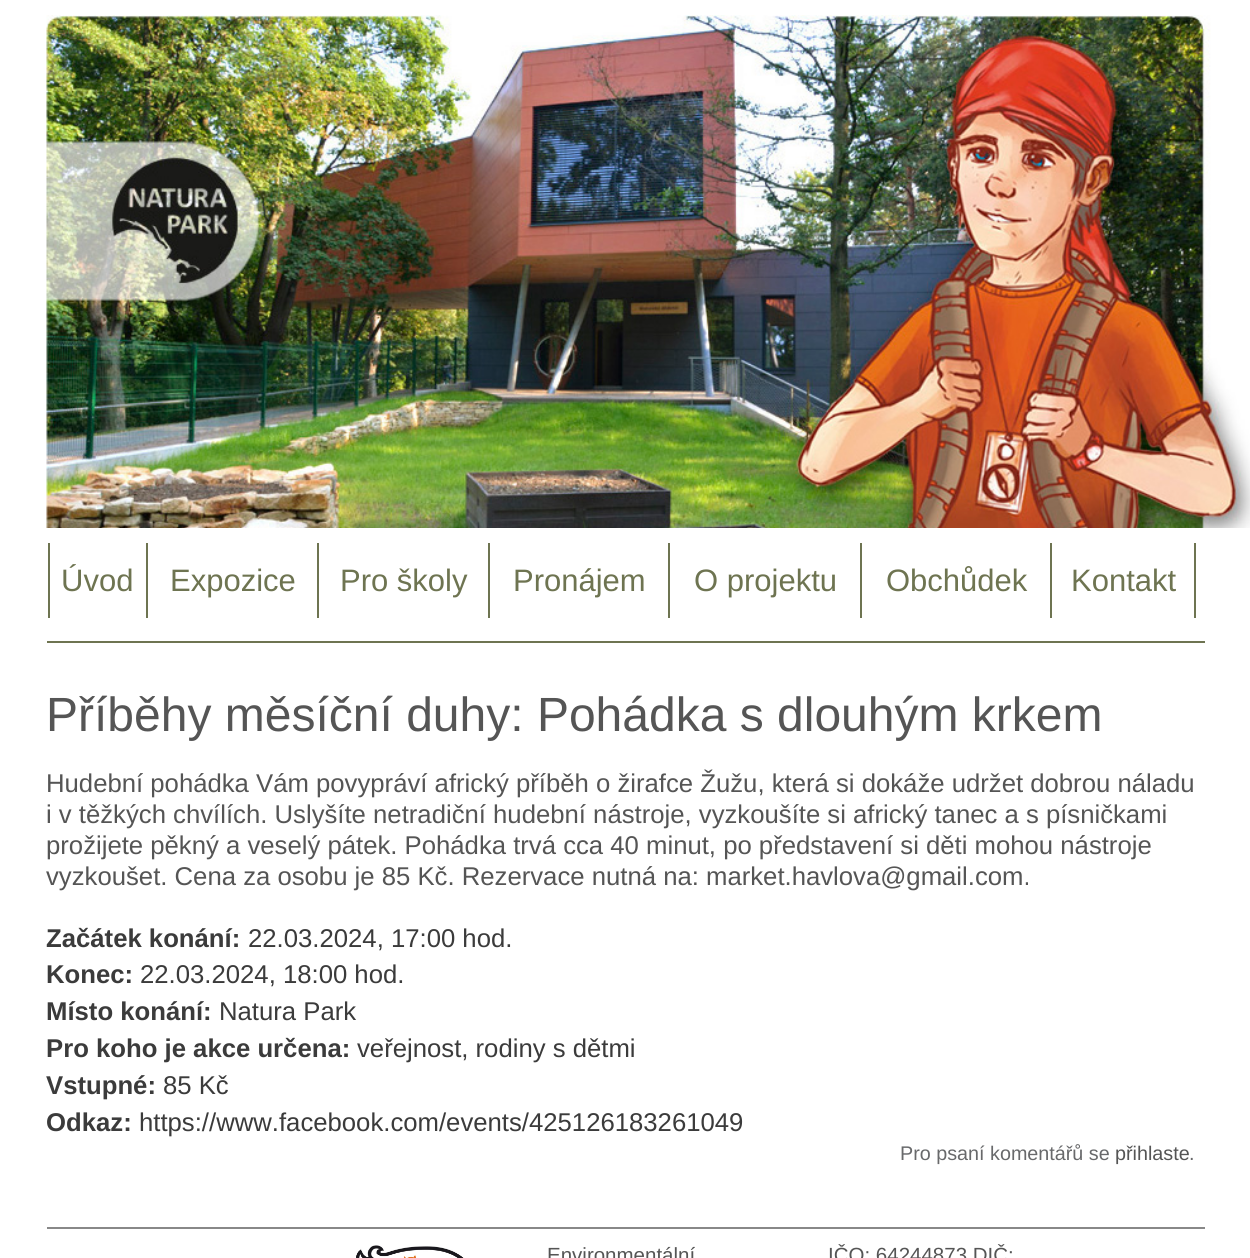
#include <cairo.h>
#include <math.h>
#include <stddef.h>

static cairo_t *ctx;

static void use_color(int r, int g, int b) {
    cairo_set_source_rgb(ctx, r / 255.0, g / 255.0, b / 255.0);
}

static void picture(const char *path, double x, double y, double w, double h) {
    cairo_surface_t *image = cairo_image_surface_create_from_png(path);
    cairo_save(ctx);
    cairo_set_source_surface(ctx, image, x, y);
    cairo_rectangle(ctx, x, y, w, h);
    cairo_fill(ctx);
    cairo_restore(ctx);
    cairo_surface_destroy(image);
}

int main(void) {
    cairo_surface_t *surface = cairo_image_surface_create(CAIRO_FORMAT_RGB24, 1250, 1258);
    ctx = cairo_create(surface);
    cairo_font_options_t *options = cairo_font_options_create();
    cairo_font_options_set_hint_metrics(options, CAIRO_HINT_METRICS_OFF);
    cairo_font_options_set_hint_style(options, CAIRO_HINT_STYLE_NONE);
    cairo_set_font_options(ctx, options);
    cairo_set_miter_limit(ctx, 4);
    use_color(255, 255, 255);
    cairo_paint(ctx);
    picture("img1.png", 46, 15, 1204, 513);
    use_color(110, 116, 81);
    cairo_rectangle(ctx, 146, 543, 2, 75);
    cairo_fill(ctx);
    cairo_rectangle(ctx, 48, 543, 2, 75);
    cairo_fill(ctx);
    cairo_select_font_face(ctx, "Liberation Sans", CAIRO_FONT_SLANT_NORMAL, CAIRO_FONT_WEIGHT_NORMAL);
    cairo_set_font_size(ctx, 31);
    cairo_move_to(ctx, 61, 591);
    cairo_show_text(ctx, "Úvod");
    cairo_rectangle(ctx, 317, 543, 2, 75);
    cairo_fill(ctx);
    cairo_move_to(ctx, 170, 591);
    cairo_show_text(ctx, "Expozice");
    cairo_rectangle(ctx, 488, 543, 2, 75);
    cairo_fill(ctx);
    cairo_move_to(ctx, 340, 591);
    cairo_show_text(ctx, "Pro školy");
    cairo_rectangle(ctx, 668, 543, 2, 75);
    cairo_fill(ctx);
    cairo_move_to(ctx, 513, 591);
    cairo_show_text(ctx, "Pronájem");
    cairo_rectangle(ctx, 860, 543, 2, 75);
    cairo_fill(ctx);
    cairo_move_to(ctx, 694, 591);
    cairo_show_text(ctx, "O projektu");
    cairo_rectangle(ctx, 1050, 543, 2, 75);
    cairo_fill(ctx);
    cairo_move_to(ctx, 886, 591);
    cairo_show_text(ctx, "Obchůdek");
    cairo_rectangle(ctx, 1194, 543, 2, 75);
    cairo_fill(ctx);
    cairo_move_to(ctx, 1071, 591);
    cairo_show_text(ctx, "Kontakt");
    cairo_rectangle(ctx, 47, 641, 1158, 2);
    cairo_fill(ctx);
    cairo_set_font_size(ctx, 48);
    use_color(85, 85, 85);
    cairo_move_to(ctx, 46, 731);
    cairo_show_text(ctx, "Příběhy měsíční duhy: Pohádka s dlouhým krkem");
    cairo_set_font_size(ctx, 25.7);
    cairo_move_to(ctx, 46, 792);
    cairo_show_text(ctx, "Hudební pohádka Vám povypráví africký příběh o žirafce Žužu, která si dokáže udržet dobrou náladu");
    cairo_move_to(ctx, 46, 823);
    cairo_show_text(ctx, "i v těžkých chvílích. Uslyšíte netradiční hudební nástroje, vyzkoušíte si africký tanec a s písničkami");
    cairo_move_to(ctx, 46, 854);
    cairo_show_text(ctx, "prožijete pěkný a veselý pátek. Pohádka trvá cca 40 minut, po představení si děti mohou nástroje");
    cairo_move_to(ctx, 46, 885);
    cairo_show_text(ctx, "vyzkoušet. Cena za osobu je 85 Kč. Rezervace nutná na:");
    cairo_move_to(ctx, 706, 885);
    cairo_show_text(ctx, "market.havlova@gmail.com.");
    cairo_select_font_face(ctx, "Liberation Sans", CAIRO_FONT_SLANT_NORMAL, CAIRO_FONT_WEIGHT_BOLD);
    use_color(59, 59, 59);
    cairo_move_to(ctx, 46, 947);
    cairo_show_text(ctx, "Začátek konání:");
    cairo_select_font_face(ctx, "Liberation Sans", CAIRO_FONT_SLANT_NORMAL, CAIRO_FONT_WEIGHT_NORMAL);
    cairo_move_to(ctx, 248, 947);
    cairo_show_text(ctx, "22.03.2024, 17:00 hod.");
    cairo_select_font_face(ctx, "Liberation Sans", CAIRO_FONT_SLANT_NORMAL, CAIRO_FONT_WEIGHT_BOLD);
    cairo_move_to(ctx, 46, 983);
    cairo_show_text(ctx, "Konec:");
    cairo_select_font_face(ctx, "Liberation Sans", CAIRO_FONT_SLANT_NORMAL, CAIRO_FONT_WEIGHT_NORMAL);
    cairo_move_to(ctx, 140, 983);
    cairo_show_text(ctx, "22.03.2024, 18:00 hod.");
    cairo_select_font_face(ctx, "Liberation Sans", CAIRO_FONT_SLANT_NORMAL, CAIRO_FONT_WEIGHT_BOLD);
    cairo_move_to(ctx, 46, 1020);
    cairo_show_text(ctx, "Místo konání:");
    cairo_select_font_face(ctx, "Liberation Sans", CAIRO_FONT_SLANT_NORMAL, CAIRO_FONT_WEIGHT_NORMAL);
    cairo_move_to(ctx, 219, 1020);
    cairo_show_text(ctx, "Natura Park");
    cairo_select_font_face(ctx, "Liberation Sans", CAIRO_FONT_SLANT_NORMAL, CAIRO_FONT_WEIGHT_BOLD);
    cairo_move_to(ctx, 46, 1057);
    cairo_show_text(ctx, "Pro koho je akce určena:");
    cairo_select_font_face(ctx, "Liberation Sans", CAIRO_FONT_SLANT_NORMAL, CAIRO_FONT_WEIGHT_NORMAL);
    cairo_move_to(ctx, 357, 1057);
    cairo_show_text(ctx, "veřejnost, rodiny s dětmi");
    cairo_select_font_face(ctx, "Liberation Sans", CAIRO_FONT_SLANT_NORMAL, CAIRO_FONT_WEIGHT_BOLD);
    cairo_move_to(ctx, 46, 1094);
    cairo_show_text(ctx, "Vstupné:");
    cairo_select_font_face(ctx, "Liberation Sans", CAIRO_FONT_SLANT_NORMAL, CAIRO_FONT_WEIGHT_NORMAL);
    cairo_move_to(ctx, 163, 1094);
    cairo_show_text(ctx, "85 Kč");
    cairo_select_font_face(ctx, "Liberation Sans", CAIRO_FONT_SLANT_NORMAL, CAIRO_FONT_WEIGHT_BOLD);
    cairo_move_to(ctx, 46, 1131);
    cairo_show_text(ctx, "Odkaz:");
    cairo_select_font_face(ctx, "Liberation Sans", CAIRO_FONT_SLANT_NORMAL, CAIRO_FONT_WEIGHT_NORMAL);
    cairo_move_to(ctx, 139, 1131);
    cairo_show_text(ctx, "https://www.facebook.com/events/425126183261049");
    cairo_set_font_size(ctx, 19.75);
    use_color(104, 105, 107);
    cairo_move_to(ctx, 900, 1160);
    cairo_show_text(ctx, "Pro psaní komentářů se");
    use_color(85, 85, 85);
    cairo_move_to(ctx, 1115, 1160);
    cairo_show_text(ctx, "přihlaste");
    use_color(104, 105, 107);
    cairo_move_to(ctx, 1189, 1160);
    cairo_show_text(ctx, ".");
    use_color(136, 136, 136);
    cairo_rectangle(ctx, 47, 1227, 1158, 2);
    cairo_fill(ctx);
    picture("img2.png", 356, 1245, 108, 13);
    cairo_set_font_size(ctx, 20.5);
    use_color(85, 85, 85);
    cairo_move_to(ctx, 547, 1262);
    cairo_show_text(ctx, "Environmentální");
    cairo_move_to(ctx, 828, 1262);
    cairo_show_text(ctx, "IČO: 64244873 DIČ:");
    cairo_surface_write_to_png(surface, "result.png");
    cairo_font_options_destroy(options);
    cairo_destroy(ctx);
    cairo_surface_destroy(surface);
    return 0;
}
